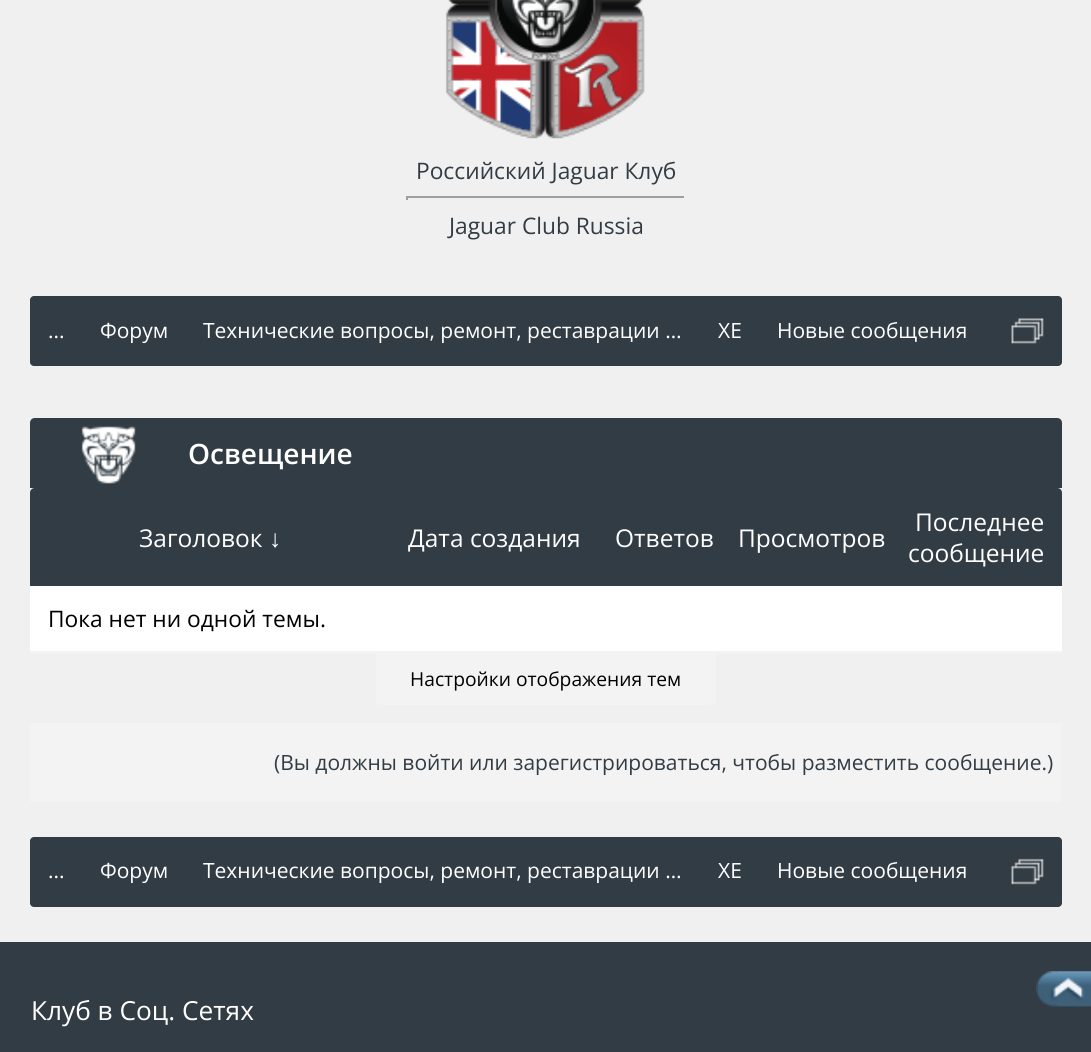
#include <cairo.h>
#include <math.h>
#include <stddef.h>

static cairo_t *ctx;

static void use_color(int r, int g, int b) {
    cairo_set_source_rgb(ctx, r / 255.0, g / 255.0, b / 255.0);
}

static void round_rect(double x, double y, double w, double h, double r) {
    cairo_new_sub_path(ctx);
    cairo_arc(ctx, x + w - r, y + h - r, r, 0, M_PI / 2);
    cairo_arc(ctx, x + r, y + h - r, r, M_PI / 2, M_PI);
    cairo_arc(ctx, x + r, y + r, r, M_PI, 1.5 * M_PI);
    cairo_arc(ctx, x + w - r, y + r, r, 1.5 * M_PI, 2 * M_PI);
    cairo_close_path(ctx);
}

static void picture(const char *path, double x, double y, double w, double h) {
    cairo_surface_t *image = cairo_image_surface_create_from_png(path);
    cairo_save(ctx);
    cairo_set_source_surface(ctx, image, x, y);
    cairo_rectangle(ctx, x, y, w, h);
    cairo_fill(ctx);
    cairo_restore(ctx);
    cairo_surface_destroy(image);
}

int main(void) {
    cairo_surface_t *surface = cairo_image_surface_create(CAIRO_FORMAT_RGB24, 1091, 1052);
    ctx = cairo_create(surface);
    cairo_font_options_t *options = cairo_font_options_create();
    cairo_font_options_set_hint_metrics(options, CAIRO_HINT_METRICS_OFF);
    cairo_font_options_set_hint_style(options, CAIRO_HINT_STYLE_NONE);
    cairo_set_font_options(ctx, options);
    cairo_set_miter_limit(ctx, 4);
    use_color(240, 240, 240);
    cairo_paint(ctx);
    picture("img1.png", 445, 0, 200, 139);
    cairo_select_font_face(ctx, "Open Sans", CAIRO_FONT_SLANT_NORMAL, CAIRO_FONT_WEIGHT_NORMAL);
    cairo_set_font_size(ctx, 22.75);
    use_color(50, 60, 68);
    cairo_move_to(ctx, 416, 179);
    cairo_show_text(ctx, "Российский Jaguar Клуб");
    use_color(159, 159, 159);
    cairo_rectangle(ctx, 406, 196, 280, 2);
    cairo_fill(ctx);
    use_color(238, 238, 238);
    cairo_rectangle(ctx, 684, 196, 2, 4);
    cairo_fill(ctx);
    use_color(159, 159, 159);
    cairo_rectangle(ctx, 406, 196, 2, 4);
    cairo_fill(ctx);
    use_color(50, 60, 68);
    cairo_move_to(ctx, 449, 234);
    cairo_show_text(ctx, "Jaguar Club Russia");
    round_rect(30, 296, 1032, 70, 4);
    cairo_fill(ctx);
    cairo_set_font_size(ctx, 21);
    use_color(255, 255, 255);
    cairo_move_to(ctx, 48, 338);
    cairo_show_text(ctx, "...");
    cairo_move_to(ctx, 100, 338);
    cairo_show_text(ctx, "Форум");
    cairo_move_to(ctx, 203, 338);
    cairo_show_text(ctx, "Технические вопросы, ремонт, реставрации …");
    cairo_move_to(ctx, 718, 338);
    cairo_show_text(ctx, "XE");
    cairo_move_to(ctx, 777, 338);
    cairo_show_text(ctx, "Новые сообщения");
    picture("img2.png", 1011, 318, 33, 26);
    use_color(50, 60, 68);
    cairo_new_path(ctx);
    cairo_move_to(ctx, 35, 418);
    cairo_line_to(ctx, 1057, 418);
    cairo_curve_to(ctx, 1060, 418, 1062, 420, 1062, 423);
    cairo_line_to(ctx, 1062, 488);
    cairo_line_to(ctx, 30, 488);
    cairo_line_to(ctx, 30, 423);
    cairo_curve_to(ctx, 30, 420, 32, 418, 35, 418);
    cairo_close_path(ctx);
    cairo_fill(ctx);
    picture("img3.png", 81, 426, 55, 58);
    cairo_select_font_face(ctx, "Open Sans SemiBold", CAIRO_FONT_SLANT_NORMAL, CAIRO_FONT_WEIGHT_NORMAL);
    cairo_set_font_size(ctx, 28);
    use_color(255, 255, 255);
    cairo_move_to(ctx, 188, 464);
    cairo_show_text(ctx, "Освещение");
    use_color(50, 60, 68);
    cairo_new_path(ctx);
    cairo_move_to(ctx, 35, 488);
    cairo_line_to(ctx, 1057, 488);
    cairo_curve_to(ctx, 1060, 488, 1062, 490, 1062, 493);
    cairo_line_to(ctx, 1062, 586);
    cairo_line_to(ctx, 30, 586);
    cairo_line_to(ctx, 30, 493);
    cairo_curve_to(ctx, 30, 490, 32, 488, 35, 488);
    cairo_close_path(ctx);
    cairo_fill(ctx);
    cairo_select_font_face(ctx, "Open Sans", CAIRO_FONT_SLANT_NORMAL, CAIRO_FONT_WEIGHT_NORMAL);
    cairo_set_font_size(ctx, 24.5);
    use_color(255, 255, 255);
    cairo_move_to(ctx, 139, 547);
    cairo_show_text(ctx, "Заголовок");
    cairo_select_font_face(ctx, "Liberation Sans", CAIRO_FONT_SLANT_NORMAL, CAIRO_FONT_WEIGHT_NORMAL);
    cairo_move_to(ctx, 269, 547);
    cairo_show_text(ctx, "↓");
    cairo_select_font_face(ctx, "Open Sans", CAIRO_FONT_SLANT_NORMAL, CAIRO_FONT_WEIGHT_NORMAL);
    cairo_move_to(ctx, 408, 547);
    cairo_show_text(ctx, "Дата создания");
    cairo_move_to(ctx, 615, 547);
    cairo_show_text(ctx, "Ответов");
    cairo_move_to(ctx, 738, 547);
    cairo_show_text(ctx, "Просмотров");
    cairo_move_to(ctx, 915, 531);
    cairo_show_text(ctx, "Последнее");
    cairo_move_to(ctx, 908, 562);
    cairo_show_text(ctx, "сообщение");
    cairo_rectangle(ctx, 30, 586, 1032, 65);
    cairo_fill(ctx);
    use_color(243, 243, 243);
    cairo_rectangle(ctx, 30, 651, 1032, 2);
    cairo_fill(ctx);
    cairo_set_font_size(ctx, 22.75);
    use_color(0, 0, 0);
    cairo_move_to(ctx, 48, 627);
    cairo_show_text(ctx, "Пока нет ни одной темы.");
    use_color(243, 243, 243);
    cairo_new_path(ctx);
    cairo_move_to(ctx, 376, 653);
    cairo_line_to(ctx, 716, 653);
    cairo_line_to(ctx, 716, 700);
    cairo_curve_to(ctx, 716, 703, 714, 705, 711, 705);
    cairo_line_to(ctx, 381, 705);
    cairo_curve_to(ctx, 378, 705, 376, 703, 376, 700);
    cairo_close_path(ctx);
    cairo_fill(ctx);
    cairo_set_font_size(ctx, 19.25);
    use_color(0, 0, 0);
    cairo_move_to(ctx, 410, 686);
    cairo_show_text(ctx, "Настройки отображения тем");
    use_color(243, 243, 243);
    cairo_rectangle(ctx, 30, 723, 1032, 79);
    cairo_fill(ctx);
    cairo_set_font_size(ctx, 21);
    use_color(50, 60, 68);
    cairo_move_to(ctx, 274, 770);
    cairo_show_text(ctx, "(Вы должны войти или зарегистрироваться, чтобы разместить сообщение.)");
    round_rect(30, 837, 1032, 70, 4);
    cairo_fill(ctx);
    use_color(255, 255, 255);
    cairo_move_to(ctx, 48, 878);
    cairo_show_text(ctx, "...");
    cairo_move_to(ctx, 100, 878);
    cairo_show_text(ctx, "Форум");
    cairo_move_to(ctx, 203, 878);
    cairo_show_text(ctx, "Технические вопросы, ремонт, реставрации …");
    cairo_move_to(ctx, 718, 878);
    cairo_show_text(ctx, "XE");
    cairo_move_to(ctx, 777, 878);
    cairo_show_text(ctx, "Новые сообщения");
    picture("img4.png", 1011, 858, 33, 27);
    use_color(50, 60, 68);
    cairo_rectangle(ctx, 0, 942, 1091, 110);
    cairo_fill(ctx);
    picture("img5.png", 1036, 971, 55, 36);
    cairo_set_font_size(ctx, 26.25);
    use_color(255, 255, 255);
    cairo_move_to(ctx, 31, 1020);
    cairo_show_text(ctx, "Клуб в Соц. Сетях");
    cairo_surface_write_to_png(surface, "result.png");
    cairo_font_options_destroy(options);
    cairo_destroy(ctx);
    cairo_surface_destroy(surface);
    return 0;
}
